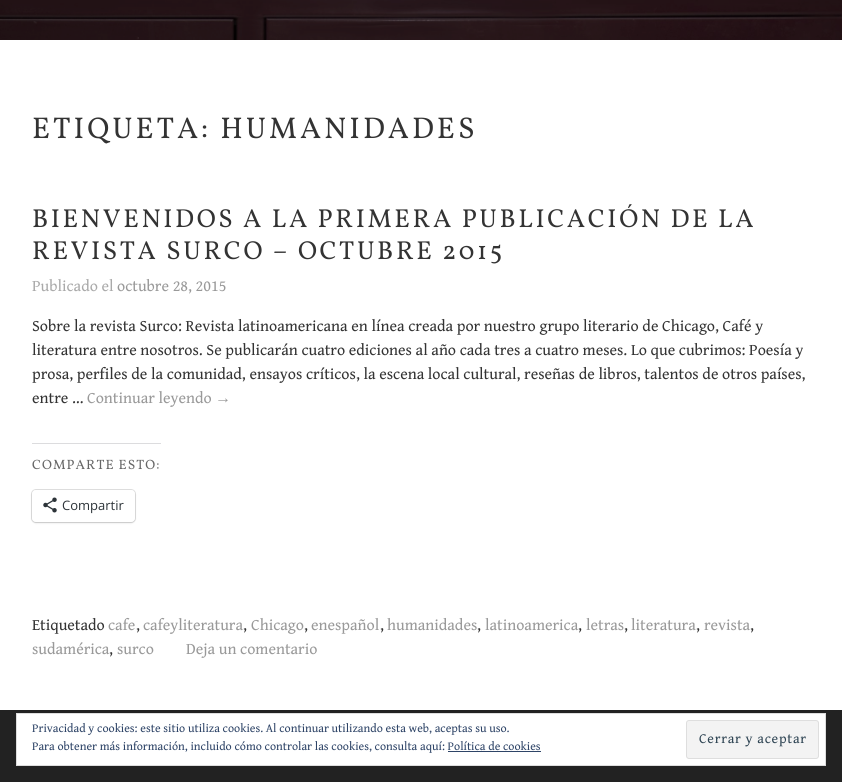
#include <cairo.h>
#include <math.h>
#include <stddef.h>

static cairo_t *ctx;

static void use_color(int r, int g, int b) {
    cairo_set_source_rgb(ctx, r / 255.0, g / 255.0, b / 255.0);
}

static void spaced_text(double x, double y, const char *s, double letter, double word) {
    cairo_move_to(ctx, x, y);
    while (*s) {
        char ch[5] = {0};
        int n = 0;
        do ch[n++] = *s++; while ((*s & 0xC0) == 0x80);
        cairo_show_text(ctx, ch);
        cairo_rel_move_to(ctx, letter + word * (*ch == ' '), 0);
    }
}

static void round_rect(double x, double y, double w, double h, double r) {
    cairo_new_sub_path(ctx);
    cairo_arc(ctx, x + w - r, y + h - r, r, 0, M_PI / 2);
    cairo_arc(ctx, x + r, y + h - r, r, M_PI / 2, M_PI);
    cairo_arc(ctx, x + r, y + r, r, M_PI, 1.5 * M_PI);
    cairo_arc(ctx, x + w - r, y + r, r, 1.5 * M_PI, 2 * M_PI);
    cairo_close_path(ctx);
}

static void shadow(double x, double y, double w, double h, double r, double blur, double alpha) {
    cairo_push_group_with_content(ctx, CAIRO_CONTENT_ALPHA);
    cairo_set_operator(ctx, CAIRO_OPERATOR_SOURCE);
    for (int i = 15; i >= -15 && fmin(w, h) + blur * i / 3 > 0; i -= 2) {
        double e = blur * i / 6;
        cairo_set_source_rgba(ctx, 0, 0, 0, alpha * erfc((i - 1) / 8.5) / 2);
        round_rect(x - e, y - e, w + 2 * e, h + 2 * e, fmax(0, fmin(r + e + blur * .6, fmin(w, h) / 2 + e)));
        cairo_fill(ctx);
    }
    cairo_pattern_t *soft = cairo_pop_group(ctx);
    cairo_mask(ctx, soft);
    cairo_pattern_destroy(soft);
}

static void picture(const char *path, double x, double y, double w, double h) {
    cairo_surface_t *image = cairo_image_surface_create_from_png(path);
    cairo_save(ctx);
    cairo_set_source_surface(ctx, image, x, y);
    cairo_rectangle(ctx, x, y, w, h);
    cairo_fill(ctx);
    cairo_restore(ctx);
    cairo_surface_destroy(image);
}

int main(void) {
    cairo_surface_t *surface = cairo_image_surface_create(CAIRO_FORMAT_RGB24, 842, 782);
    ctx = cairo_create(surface);
    cairo_font_options_t *options = cairo_font_options_create();
    cairo_font_options_set_hint_metrics(options, CAIRO_HINT_METRICS_OFF);
    cairo_font_options_set_hint_style(options, CAIRO_HINT_STYLE_NONE);
    cairo_set_font_options(ctx, options);
    cairo_set_miter_limit(ctx, 4);
    use_color(255, 255, 255);
    cairo_paint(ctx);
    picture("img1.png", 0, 0, 842, 40);
    cairo_select_font_face(ctx, "Vollkorn", CAIRO_FONT_SLANT_NORMAL, CAIRO_FONT_WEIGHT_NORMAL);
    cairo_set_font_size(ctx, 30);
    use_color(51, 51, 51);
    spaced_text(32, 138, "ETIQUETA: HUMANIDADES", 3, 0);
    cairo_set_font_size(ctx, 26);
    spaced_text(32, 227, "BIENVENIDOS A LA PRIMERA PUBLICACIÓN DE LA", 2.6, 0);
    spaced_text(32, 259, "REVISTA SURCO – OCTUBRE 2015", 2.6, 0);
    cairo_select_font_face(ctx, "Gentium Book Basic", CAIRO_FONT_SLANT_NORMAL, CAIRO_FONT_WEIGHT_NORMAL);
    cairo_set_font_size(ctx, 16);
    use_color(170, 170, 170);
    cairo_move_to(ctx, 32, 291);
    cairo_show_text(ctx, "Publicado el");
    use_color(153, 153, 153);
    cairo_move_to(ctx, 117, 291);
    cairo_show_text(ctx, "octubre 28, 2015");
    use_color(51, 51, 51);
    cairo_move_to(ctx, 32, 331);
    cairo_show_text(ctx, "Sobre la revista Surco: Revista latinoamericana en línea creada por nuestro grupo literario de Chicago, Café y");
    cairo_move_to(ctx, 32, 355);
    cairo_show_text(ctx, "literatura entre nosotros. Se publicarán cuatro ediciones al año cada tres a cuatro meses. Lo que cubrimos: Poesía y");
    cairo_move_to(ctx, 32, 379);
    cairo_show_text(ctx, "prosa, perfiles de la comunidad, ensayos críticos, la escena local cultural, reseñas de libros, talentos de otros países,");
    cairo_move_to(ctx, 32, 403);
    cairo_show_text(ctx, "entre …");
    use_color(153, 153, 153);
    cairo_move_to(ctx, 87, 403);
    cairo_show_text(ctx, "Continuar leyendo");
    cairo_select_font_face(ctx, "Liberation Serif", CAIRO_FONT_SLANT_NORMAL, CAIRO_FONT_WEIGHT_NORMAL);
    cairo_move_to(ctx, 215, 403);
    cairo_show_text(ctx, "→");
    use_color(220, 220, 222);
    cairo_rectangle(ctx, 32, 443, 129, 1);
    cairo_fill(ctx);
    cairo_select_font_face(ctx, "Vollkorn", CAIRO_FONT_SLANT_NORMAL, CAIRO_FONT_WEIGHT_NORMAL);
    cairo_set_font_size(ctx, 13.5);
    use_color(102, 102, 102);
    spaced_text(32, 469, "COMPARTE ESTO:", 1.1, 0);
    round_rect(31.5, 489.5, 104, 33, 4.5);
    use_color(224, 224, 224);
    cairo_set_line_width(ctx, 1);
    cairo_stroke(ctx);
    use_color(0, 0, 0);
    shadow(32, 491, 103, 32, 4, 1, 0.12);
    use_color(255, 255, 255);
    round_rect(32, 490, 103, 32, 4);
    cairo_fill(ctx);
    picture("img2.png", 43, 497, 14, 16);
    cairo_select_font_face(ctx, "Open Sans", CAIRO_FONT_SLANT_NORMAL, CAIRO_FONT_WEIGHT_NORMAL);
    cairo_set_font_size(ctx, 13);
    use_color(44, 51, 56);
    cairo_move_to(ctx, 62, 510);
    cairo_show_text(ctx, "Compartir");
    cairo_select_font_face(ctx, "Gentium Book Basic", CAIRO_FONT_SLANT_NORMAL, CAIRO_FONT_WEIGHT_NORMAL);
    cairo_set_font_size(ctx, 16);
    use_color(51, 51, 51);
    cairo_move_to(ctx, 32, 630);
    cairo_show_text(ctx, "Etiquetado");
    use_color(153, 153, 153);
    cairo_move_to(ctx, 108, 630);
    cairo_show_text(ctx, "cafe");
    use_color(51, 51, 51);
    cairo_move_to(ctx, 136, 630);
    cairo_show_text(ctx, ",");
    use_color(153, 153, 153);
    cairo_move_to(ctx, 143, 630);
    cairo_show_text(ctx, "cafeyliteratura");
    use_color(51, 51, 51);
    cairo_move_to(ctx, 243, 630);
    cairo_show_text(ctx, ",");
    use_color(153, 153, 153);
    cairo_move_to(ctx, 251, 630);
    cairo_show_text(ctx, "Chicago");
    use_color(51, 51, 51);
    cairo_move_to(ctx, 304, 630);
    cairo_show_text(ctx, ",");
    use_color(153, 153, 153);
    cairo_move_to(ctx, 311, 630);
    cairo_show_text(ctx, "enespañol");
    use_color(51, 51, 51);
    cairo_move_to(ctx, 380, 630);
    cairo_show_text(ctx, ",");
    use_color(153, 153, 153);
    cairo_move_to(ctx, 387, 630);
    cairo_show_text(ctx, "humanidades");
    use_color(51, 51, 51);
    cairo_move_to(ctx, 477, 630);
    cairo_show_text(ctx, ",");
    use_color(153, 153, 153);
    cairo_move_to(ctx, 485, 630);
    cairo_show_text(ctx, "latinoamerica");
    use_color(51, 51, 51);
    cairo_move_to(ctx, 578, 630);
    cairo_show_text(ctx, ",");
    use_color(153, 153, 153);
    cairo_move_to(ctx, 586, 630);
    cairo_show_text(ctx, "letras");
    use_color(51, 51, 51);
    cairo_move_to(ctx, 624, 630);
    cairo_show_text(ctx, ",");
    use_color(153, 153, 153);
    cairo_move_to(ctx, 631, 630);
    cairo_show_text(ctx, "literatura");
    use_color(51, 51, 51);
    cairo_move_to(ctx, 696, 630);
    cairo_show_text(ctx, ",");
    use_color(153, 153, 153);
    cairo_move_to(ctx, 704, 630);
    cairo_show_text(ctx, "revista");
    use_color(51, 51, 51);
    cairo_move_to(ctx, 750, 630);
    cairo_show_text(ctx, ",");
    use_color(153, 153, 153);
    cairo_move_to(ctx, 32, 654);
    cairo_show_text(ctx, "sudamérica");
    use_color(51, 51, 51);
    cairo_move_to(ctx, 109, 654);
    cairo_show_text(ctx, ",");
    use_color(153, 153, 153);
    cairo_move_to(ctx, 117, 654);
    cairo_show_text(ctx, "surco");
    cairo_move_to(ctx, 186, 654);
    cairo_show_text(ctx, "Deja un comentario");
    use_color(34, 34, 34);
    cairo_rectangle(ctx, 0, 710, 842, 72);
    cairo_fill(ctx);
    use_color(255, 255, 255);
    cairo_rectangle(ctx, 16.5, 713.5, 809, 52);
    cairo_fill_preserve(ctx);
    use_color(222, 222, 222);
    cairo_stroke(ctx);
    cairo_set_font_size(ctx, 12);
    use_color(46, 68, 103);
    cairo_move_to(ctx, 32, 732);
    cairo_show_text(ctx, "Privacidad y cookies: este sitio utiliza cookies. Al continuar utilizando esta web, aceptas su uso.");
    cairo_move_to(ctx, 32, 750);
    cairo_show_text(ctx, "Para obtener más información, incluido cómo controlar las cookies, consulta aquí: Política de cookies");
    use_color(243, 243, 243);
    round_rect(686.5, 720.5, 132, 38, 2.5);
    cairo_fill_preserve(ctx);
    use_color(222, 222, 222);
    cairo_stroke(ctx);
    cairo_set_font_size(ctx, 14);
    use_color(46, 68, 83);
    spaced_text(699, 743, "Cerrar y aceptar", 0.75, 0);
    use_color(46, 68, 103);
    cairo_rectangle(ctx, 448, 751, 93, 1);
    cairo_fill(ctx);
    cairo_surface_write_to_png(surface, "result.png");
    cairo_font_options_destroy(options);
    cairo_destroy(ctx);
    cairo_surface_destroy(surface);
    return 0;
}
